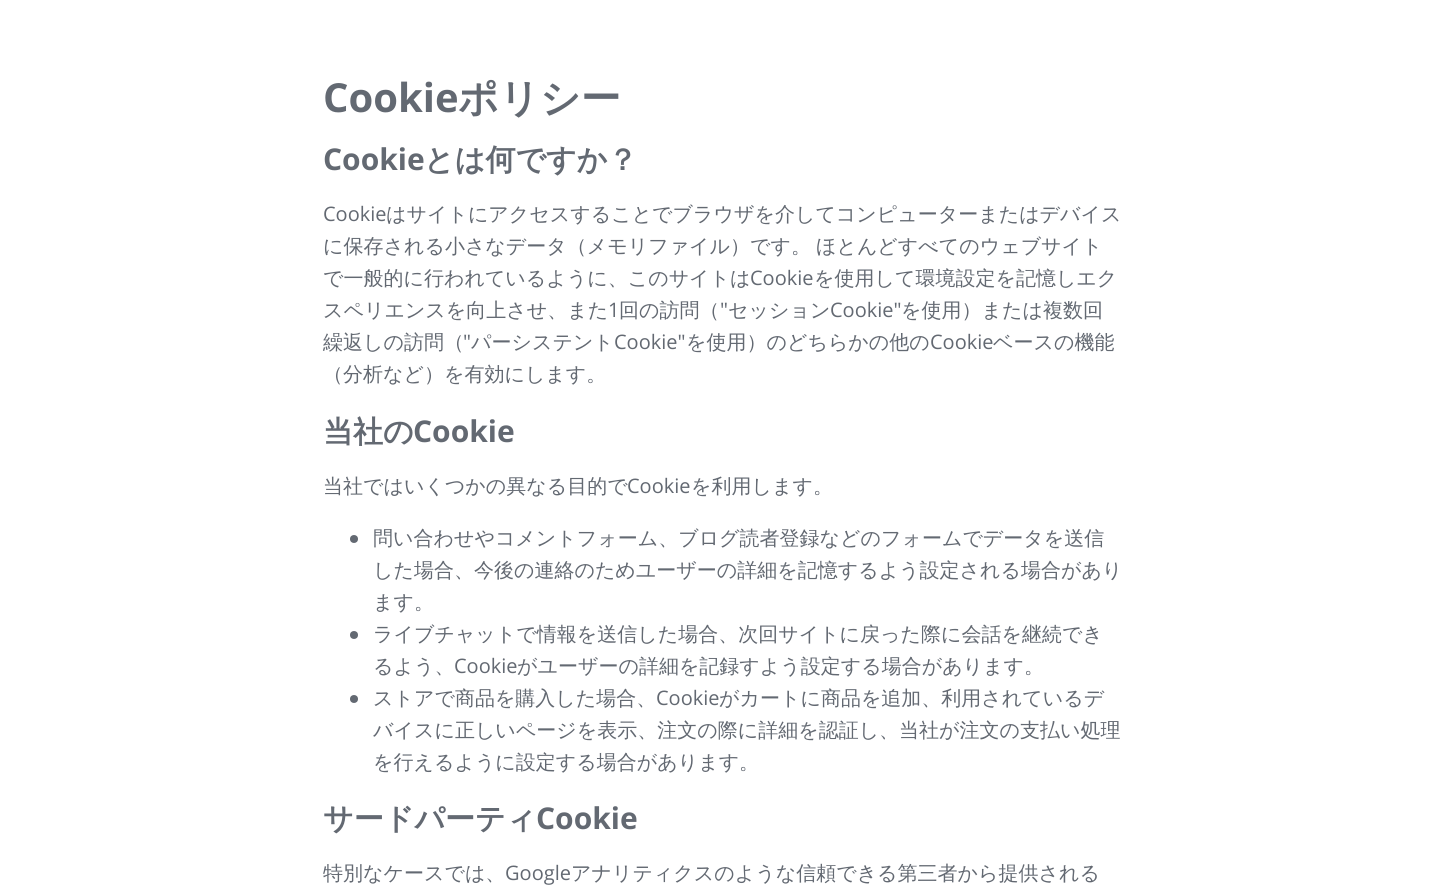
#include <cairo.h>
#include <math.h>
#include <stddef.h>

static cairo_t *ctx;

static void use_color(int r, int g, int b) {
    cairo_set_source_rgb(ctx, r / 255.0, g / 255.0, b / 255.0);
}

static void spaced_text(double x, double y, const char *s, double letter, double word) {
    cairo_move_to(ctx, x, y);
    while (*s) {
        char ch[5] = {0};
        int n = 0;
        do ch[n++] = *s++; while ((*s & 0xC0) == 0x80);
        cairo_show_text(ctx, ch);
        cairo_rel_move_to(ctx, letter + word * (*ch == ' '), 0);
    }
}

int main(void) {
    cairo_surface_t *surface = cairo_image_surface_create(CAIRO_FORMAT_RGB24, 1445, 893);
    ctx = cairo_create(surface);
    cairo_font_options_t *options = cairo_font_options_create();
    cairo_font_options_set_hint_metrics(options, CAIRO_HINT_METRICS_OFF);
    cairo_font_options_set_hint_style(options, CAIRO_HINT_STYLE_NONE);
    cairo_set_font_options(ctx, options);
    cairo_set_miter_limit(ctx, 4);
    use_color(255, 255, 255);
    cairo_paint(ctx);
    cairo_select_font_face(ctx, "Open Sans", CAIRO_FONT_SLANT_NORMAL, CAIRO_FONT_WEIGHT_BOLD);
    cairo_set_font_size(ctx, 40);
    use_color(99, 105, 114);
    cairo_move_to(ctx, 323, 112);
    cairo_show_text(ctx, "Cookie");
    cairo_select_font_face(ctx, "WenQuanYi Zen Hei", CAIRO_FONT_SLANT_NORMAL, CAIRO_FONT_WEIGHT_BOLD);
    cairo_move_to(ctx, 458, 112);
    cairo_show_text(ctx, "ポリシー");
    cairo_select_font_face(ctx, "Open Sans", CAIRO_FONT_SLANT_NORMAL, CAIRO_FONT_WEIGHT_BOLD);
    cairo_set_font_size(ctx, 30);
    cairo_move_to(ctx, 323, 170);
    cairo_show_text(ctx, "Cookie");
    cairo_select_font_face(ctx, "WenQuanYi Zen Hei", CAIRO_FONT_SLANT_NORMAL, CAIRO_FONT_WEIGHT_BOLD);
    cairo_move_to(ctx, 424, 170);
    cairo_show_text(ctx, "とは何ですか？");
    cairo_select_font_face(ctx, "Open Sans", CAIRO_FONT_SLANT_NORMAL, CAIRO_FONT_WEIGHT_NORMAL);
    cairo_set_font_size(ctx, 20);
    cairo_move_to(ctx, 323, 221);
    cairo_show_text(ctx, "Cookie");
    cairo_select_font_face(ctx, "WenQuanYi Zen Hei Medium", CAIRO_FONT_SLANT_NORMAL, CAIRO_FONT_WEIGHT_NORMAL);
    cairo_move_to(ctx, 386, 221);
    cairo_show_text(ctx, "はサイトにアクセスすることでブラウザを介してコンピューターまたはデバイス");
    spaced_text(323, 253, "に保存される小さなデータ（メモリファイル）です。 ほとんどすべてのウェブサイト", 0, -1);
    cairo_move_to(ctx, 323, 285);
    cairo_show_text(ctx, "で一般的に行われているように、このサイトは");
    cairo_select_font_face(ctx, "Open Sans", CAIRO_FONT_SLANT_NORMAL, CAIRO_FONT_WEIGHT_NORMAL);
    cairo_move_to(ctx, 750, 285);
    cairo_show_text(ctx, "Cookie");
    cairo_select_font_face(ctx, "WenQuanYi Zen Hei Medium", CAIRO_FONT_SLANT_NORMAL, CAIRO_FONT_WEIGHT_NORMAL);
    cairo_move_to(ctx, 814, 285);
    cairo_show_text(ctx, "を使用して環境設定を記憶しエク");
    cairo_move_to(ctx, 323, 317);
    cairo_show_text(ctx, "スペリエンスを向上させ、また");
    cairo_select_font_face(ctx, "Open Sans", CAIRO_FONT_SLANT_NORMAL, CAIRO_FONT_WEIGHT_NORMAL);
    cairo_move_to(ctx, 608, 317);
    cairo_show_text(ctx, "1");
    cairo_select_font_face(ctx, "WenQuanYi Zen Hei Medium", CAIRO_FONT_SLANT_NORMAL, CAIRO_FONT_WEIGHT_NORMAL);
    cairo_move_to(ctx, 619, 317);
    cairo_show_text(ctx, "回の訪問（");
    cairo_select_font_face(ctx, "Open Sans", CAIRO_FONT_SLANT_NORMAL, CAIRO_FONT_WEIGHT_NORMAL);
    cairo_move_to(ctx, 720, 317);
    cairo_show_text(ctx, "\"");
    cairo_select_font_face(ctx, "WenQuanYi Zen Hei Medium", CAIRO_FONT_SLANT_NORMAL, CAIRO_FONT_WEIGHT_NORMAL);
    cairo_move_to(ctx, 728, 317);
    cairo_show_text(ctx, "セッション");
    cairo_select_font_face(ctx, "Open Sans", CAIRO_FONT_SLANT_NORMAL, CAIRO_FONT_WEIGHT_NORMAL);
    cairo_move_to(ctx, 830, 317);
    cairo_show_text(ctx, "Cookie\"");
    cairo_select_font_face(ctx, "WenQuanYi Zen Hei Medium", CAIRO_FONT_SLANT_NORMAL, CAIRO_FONT_WEIGHT_NORMAL);
    cairo_move_to(ctx, 901, 317);
    cairo_show_text(ctx, "を使用）または複数回");
    cairo_move_to(ctx, 323, 349);
    cairo_show_text(ctx, "繰返しの訪問（");
    cairo_select_font_face(ctx, "Open Sans", CAIRO_FONT_SLANT_NORMAL, CAIRO_FONT_WEIGHT_NORMAL);
    cairo_move_to(ctx, 463, 349);
    cairo_show_text(ctx, "\"");
    cairo_select_font_face(ctx, "WenQuanYi Zen Hei Medium", CAIRO_FONT_SLANT_NORMAL, CAIRO_FONT_WEIGHT_NORMAL);
    cairo_move_to(ctx, 471, 349);
    cairo_show_text(ctx, "パーシステント");
    cairo_select_font_face(ctx, "Open Sans", CAIRO_FONT_SLANT_NORMAL, CAIRO_FONT_WEIGHT_NORMAL);
    cairo_move_to(ctx, 614, 349);
    cairo_show_text(ctx, "Cookie\"");
    cairo_select_font_face(ctx, "WenQuanYi Zen Hei Medium", CAIRO_FONT_SLANT_NORMAL, CAIRO_FONT_WEIGHT_NORMAL);
    cairo_move_to(ctx, 686, 349);
    cairo_show_text(ctx, "を使用）のどちらかの他の");
    cairo_select_font_face(ctx, "Open Sans", CAIRO_FONT_SLANT_NORMAL, CAIRO_FONT_WEIGHT_NORMAL);
    cairo_move_to(ctx, 930, 349);
    cairo_show_text(ctx, "Cookie");
    cairo_select_font_face(ctx, "WenQuanYi Zen Hei Medium", CAIRO_FONT_SLANT_NORMAL, CAIRO_FONT_WEIGHT_NORMAL);
    cairo_move_to(ctx, 993, 349);
    cairo_show_text(ctx, "ベースの機能");
    cairo_move_to(ctx, 323, 381);
    cairo_show_text(ctx, "（分析など）を有効にします。");
    cairo_select_font_face(ctx, "WenQuanYi Zen Hei", CAIRO_FONT_SLANT_NORMAL, CAIRO_FONT_WEIGHT_BOLD);
    cairo_set_font_size(ctx, 30);
    cairo_move_to(ctx, 323, 442);
    cairo_show_text(ctx, "当社の");
    cairo_select_font_face(ctx, "Open Sans", CAIRO_FONT_SLANT_NORMAL, CAIRO_FONT_WEIGHT_BOLD);
    cairo_move_to(ctx, 413, 442);
    cairo_show_text(ctx, "Cookie");
    cairo_select_font_face(ctx, "WenQuanYi Zen Hei Medium", CAIRO_FONT_SLANT_NORMAL, CAIRO_FONT_WEIGHT_NORMAL);
    cairo_set_font_size(ctx, 20);
    cairo_move_to(ctx, 323, 493);
    cairo_show_text(ctx, "当社ではいくつかの異なる目的で");
    cairo_select_font_face(ctx, "Open Sans", CAIRO_FONT_SLANT_NORMAL, CAIRO_FONT_WEIGHT_NORMAL);
    cairo_move_to(ctx, 627, 493);
    cairo_show_text(ctx, "Cookie");
    cairo_select_font_face(ctx, "WenQuanYi Zen Hei Medium", CAIRO_FONT_SLANT_NORMAL, CAIRO_FONT_WEIGHT_NORMAL);
    cairo_move_to(ctx, 691, 493);
    cairo_show_text(ctx, "を利用します。");
    cairo_new_path(ctx);
    cairo_arc(ctx, 354, 539, 4, 0, 2 * M_PI);
    cairo_fill(ctx);
    cairo_move_to(ctx, 373, 545);
    cairo_show_text(ctx, "問い合わせやコメントフォーム、ブログ読者登録などのフォームでデータを送信");
    cairo_move_to(ctx, 373, 577);
    cairo_show_text(ctx, "した場合、今後の連絡のためユーザーの詳細を記憶するよう設定される場合があり");
    cairo_move_to(ctx, 373, 609);
    cairo_show_text(ctx, "ます。");
    cairo_new_path(ctx);
    cairo_arc(ctx, 354, 635, 4, 0, 2 * M_PI);
    cairo_fill(ctx);
    cairo_move_to(ctx, 373, 641);
    cairo_show_text(ctx, "ライブチャットで情報を送信した場合、次回サイトに戻った際に会話を継続でき");
    cairo_move_to(ctx, 373, 673);
    cairo_show_text(ctx, "るよう、");
    cairo_select_font_face(ctx, "Open Sans", CAIRO_FONT_SLANT_NORMAL, CAIRO_FONT_WEIGHT_NORMAL);
    cairo_move_to(ctx, 454, 673);
    cairo_show_text(ctx, "Cookie");
    cairo_select_font_face(ctx, "WenQuanYi Zen Hei Medium", CAIRO_FONT_SLANT_NORMAL, CAIRO_FONT_WEIGHT_NORMAL);
    cairo_move_to(ctx, 517, 673);
    cairo_show_text(ctx, "がユーザーの詳細を記録すよう設定する場合があります。");
    cairo_new_path(ctx);
    cairo_arc(ctx, 354, 699, 4, 0, 2 * M_PI);
    cairo_fill(ctx);
    cairo_move_to(ctx, 373, 705);
    cairo_show_text(ctx, "ストアで商品を購入した場合、");
    cairo_select_font_face(ctx, "Open Sans", CAIRO_FONT_SLANT_NORMAL, CAIRO_FONT_WEIGHT_NORMAL);
    cairo_move_to(ctx, 656, 705);
    cairo_show_text(ctx, "Cookie");
    cairo_select_font_face(ctx, "WenQuanYi Zen Hei Medium", CAIRO_FONT_SLANT_NORMAL, CAIRO_FONT_WEIGHT_NORMAL);
    cairo_move_to(ctx, 719, 705);
    cairo_show_text(ctx, "がカートに商品を追加、利用されているデ");
    cairo_move_to(ctx, 373, 737);
    cairo_show_text(ctx, "バイスに正しいページを表示、注文の際に詳細を認証し、当社が注文の支払い処理");
    cairo_move_to(ctx, 373, 769);
    cairo_show_text(ctx, "を行えるように設定する場合があります。");
    cairo_select_font_face(ctx, "WenQuanYi Zen Hei", CAIRO_FONT_SLANT_NORMAL, CAIRO_FONT_WEIGHT_BOLD);
    cairo_set_font_size(ctx, 30);
    cairo_move_to(ctx, 323, 829);
    cairo_show_text(ctx, "サードパーティ");
    cairo_select_font_face(ctx, "Open Sans", CAIRO_FONT_SLANT_NORMAL, CAIRO_FONT_WEIGHT_BOLD);
    cairo_move_to(ctx, 536, 829);
    cairo_show_text(ctx, "Cookie");
    cairo_select_font_face(ctx, "WenQuanYi Zen Hei Medium", CAIRO_FONT_SLANT_NORMAL, CAIRO_FONT_WEIGHT_NORMAL);
    cairo_set_font_size(ctx, 20);
    cairo_move_to(ctx, 323, 880);
    cairo_show_text(ctx, "特別なケースでは、");
    cairo_select_font_face(ctx, "Open Sans", CAIRO_FONT_SLANT_NORMAL, CAIRO_FONT_WEIGHT_NORMAL);
    cairo_move_to(ctx, 505, 880);
    cairo_show_text(ctx, "Google");
    cairo_select_font_face(ctx, "WenQuanYi Zen Hei Medium", CAIRO_FONT_SLANT_NORMAL, CAIRO_FONT_WEIGHT_NORMAL);
    cairo_move_to(ctx, 571, 880);
    cairo_show_text(ctx, "アナリティクスのような信頼できる第三者から提供される");
    cairo_surface_write_to_png(surface, "result.png");
    cairo_font_options_destroy(options);
    cairo_destroy(ctx);
    cairo_surface_destroy(surface);
    return 0;
}
